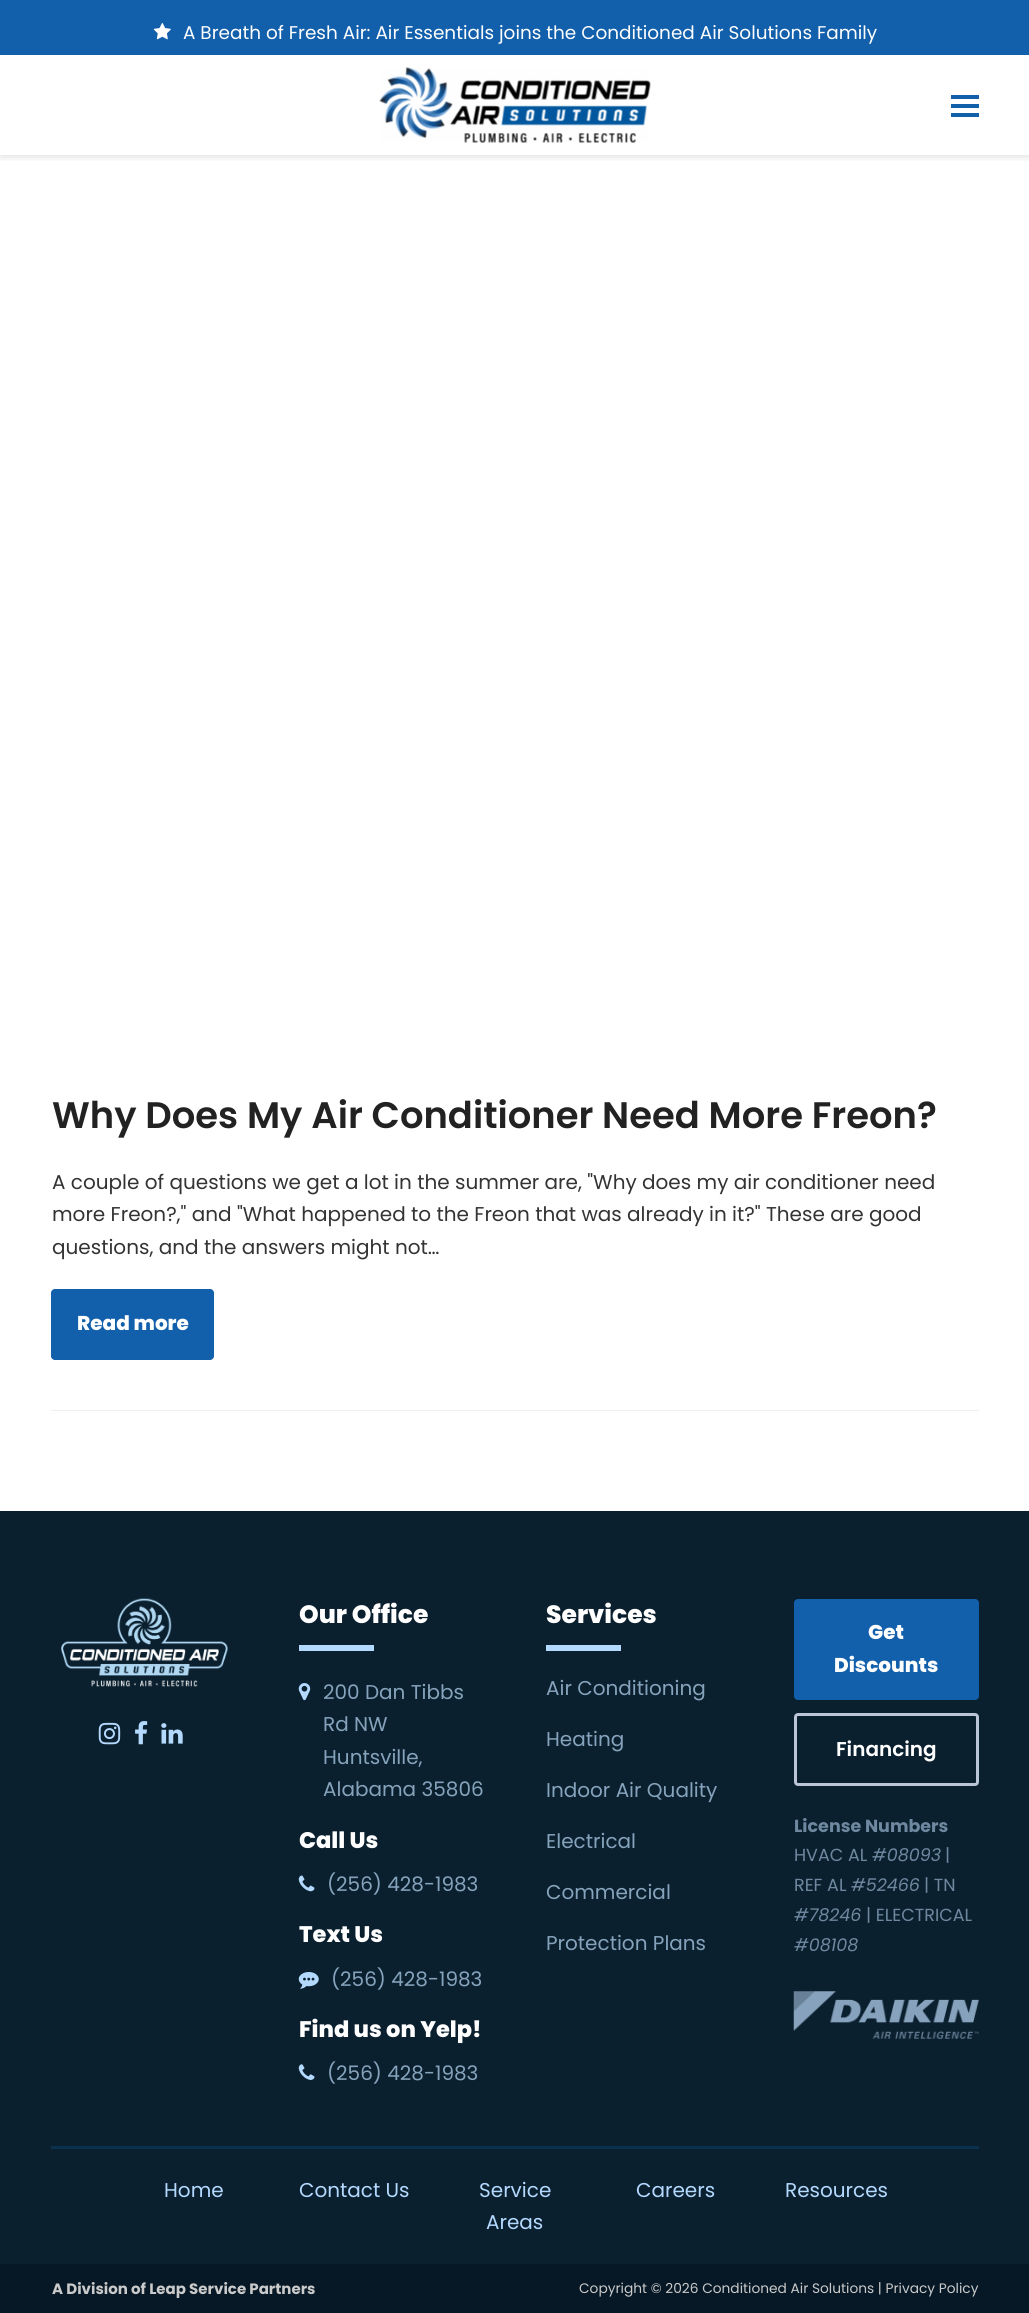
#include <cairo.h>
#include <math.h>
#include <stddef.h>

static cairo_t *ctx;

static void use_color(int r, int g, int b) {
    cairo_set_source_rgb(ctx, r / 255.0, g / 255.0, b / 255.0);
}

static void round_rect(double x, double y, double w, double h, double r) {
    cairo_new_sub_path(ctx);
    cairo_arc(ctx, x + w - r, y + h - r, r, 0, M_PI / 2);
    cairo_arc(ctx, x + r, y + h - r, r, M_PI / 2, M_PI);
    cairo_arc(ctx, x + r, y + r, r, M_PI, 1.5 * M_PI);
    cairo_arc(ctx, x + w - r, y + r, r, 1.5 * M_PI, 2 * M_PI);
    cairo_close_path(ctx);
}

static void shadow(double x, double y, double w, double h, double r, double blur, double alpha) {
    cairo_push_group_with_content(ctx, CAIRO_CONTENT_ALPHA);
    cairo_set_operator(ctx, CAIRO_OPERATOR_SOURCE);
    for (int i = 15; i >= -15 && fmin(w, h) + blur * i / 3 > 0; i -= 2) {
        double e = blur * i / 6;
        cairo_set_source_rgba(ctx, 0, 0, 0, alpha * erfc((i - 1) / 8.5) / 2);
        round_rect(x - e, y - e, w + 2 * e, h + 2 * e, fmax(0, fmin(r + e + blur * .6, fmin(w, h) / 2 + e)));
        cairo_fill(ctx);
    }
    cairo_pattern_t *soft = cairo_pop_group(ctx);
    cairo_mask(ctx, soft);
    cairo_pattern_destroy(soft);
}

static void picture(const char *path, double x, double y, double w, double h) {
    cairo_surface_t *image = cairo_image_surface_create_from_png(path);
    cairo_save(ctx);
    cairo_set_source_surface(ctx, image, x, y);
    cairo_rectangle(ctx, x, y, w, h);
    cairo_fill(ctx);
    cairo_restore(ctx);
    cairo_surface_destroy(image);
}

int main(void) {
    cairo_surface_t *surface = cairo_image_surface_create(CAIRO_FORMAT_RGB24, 1029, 2313);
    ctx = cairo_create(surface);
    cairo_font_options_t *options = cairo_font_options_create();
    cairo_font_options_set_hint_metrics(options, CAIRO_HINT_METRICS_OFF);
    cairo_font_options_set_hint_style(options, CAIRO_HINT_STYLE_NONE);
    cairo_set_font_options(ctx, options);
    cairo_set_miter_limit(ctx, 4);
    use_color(255, 255, 255);
    cairo_paint(ctx);
    cairo_save(ctx);
    cairo_rectangle(ctx, 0, 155, 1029, 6);
    cairo_clip(ctx);
    use_color(0, 0, 0);
    shadow(0, 58, 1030, 100, 0, 3, 0.1);
    cairo_restore(ctx);
    use_color(18, 95, 171);
    cairo_rectangle(ctx, 0, 0, 1029, 55);
    cairo_fill(ctx);
    picture("img1.png", 153, 23, 18, 17);
    cairo_select_font_face(ctx, "Poppins", CAIRO_FONT_SLANT_NORMAL, CAIRO_FONT_WEIGHT_NORMAL);
    cairo_set_font_size(ctx, 18.45);
    use_color(255, 255, 255);
    cairo_move_to(ctx, 183, 39);
    cairo_show_text(ctx, "A Breath of Fresh Air: Air Essentials joins the Conditioned Air Solutions Family");
    picture("img2.png", 379, 67, 272, 76);
    use_color(18, 95, 171);
    cairo_rectangle(ctx, 951, 104, 28, 4);
    cairo_fill(ctx);
    cairo_rectangle(ctx, 951, 95, 28, 4);
    cairo_fill(ctx);
    cairo_rectangle(ctx, 951, 113, 28, 4);
    cairo_fill(ctx);
    cairo_select_font_face(ctx, "Poppins SemiBold", CAIRO_FONT_SLANT_NORMAL, CAIRO_FONT_WEIGHT_NORMAL);
    cairo_set_font_size(ctx, 36.9);
    use_color(34, 34, 34);
    cairo_move_to(ctx, 52, 1128);
    cairo_show_text(ctx, "Why Does My Air Conditioner Need More Freon?");
    cairo_select_font_face(ctx, "Poppins", CAIRO_FONT_SLANT_NORMAL, CAIRO_FONT_WEIGHT_NORMAL);
    cairo_set_font_size(ctx, 20);
    use_color(51, 51, 51);
    cairo_move_to(ctx, 52, 1189);
    cairo_show_text(ctx, "A couple of questions we get a lot in the summer are, \"Why does my air conditioner need");
    cairo_move_to(ctx, 52, 1221);
    cairo_show_text(ctx, "more Freon?,\" and \"What happened to the Freon that was already in it?\" These are good");
    cairo_move_to(ctx, 52, 1254);
    cairo_show_text(ctx, "questions, and the answers might not…");
    use_color(18, 95, 171);
    round_rect(51, 1289, 163, 71, 4);
    cairo_fill(ctx);
    cairo_select_font_face(ctx, "Poppins ExtraBold", CAIRO_FONT_SLANT_NORMAL, CAIRO_FONT_WEIGHT_NORMAL);
    use_color(255, 255, 255);
    cairo_move_to(ctx, 77, 1330);
    cairo_show_text(ctx, "Read more");
    use_color(238, 238, 238);
    cairo_rectangle(ctx, 51, 1410, 928, 1);
    cairo_fill(ctx);
    use_color(11, 32, 47);
    cairo_rectangle(ctx, 0, 1511, 1029, 753);
    cairo_fill(ctx);
    picture("img3.png", 61, 1598, 167, 89);
    picture("img4.png", 98, 1722, 23, 23);
    picture("img5.png", 135, 1721, 13, 24);
    picture("img6.png", 161, 1723, 22, 21);
    cairo_set_font_size(ctx, 25);
    use_color(255, 255, 255);
    cairo_move_to(ctx, 299, 1623);
    cairo_show_text(ctx, "Our Office");
    use_color(180, 217, 255);
    cairo_rectangle(ctx, 299, 1645, 75, 6);
    cairo_fill(ctx);
    picture("img7.png", 298, 1683, 13, 18);
    cairo_select_font_face(ctx, "Poppins", CAIRO_FONT_SLANT_NORMAL, CAIRO_FONT_WEIGHT_NORMAL);
    cairo_set_font_size(ctx, 20);
    use_color(134, 163, 188);
    cairo_move_to(ctx, 323, 1699);
    cairo_show_text(ctx, "200 Dan Tibbs");
    cairo_move_to(ctx, 323, 1731);
    cairo_show_text(ctx, "Rd NW");
    cairo_move_to(ctx, 323, 1764);
    cairo_show_text(ctx, "Huntsville,");
    cairo_move_to(ctx, 323, 1796);
    cairo_show_text(ctx, "Alabama 35806");
    cairo_select_font_face(ctx, "Poppins ExtraBold", CAIRO_FONT_SLANT_NORMAL, CAIRO_FONT_WEIGHT_NORMAL);
    cairo_set_font_size(ctx, 22.5);
    use_color(255, 255, 255);
    cairo_move_to(ctx, 299, 1848);
    cairo_show_text(ctx, "Call Us");
    picture("img8.png", 298, 1875, 17, 17);
    cairo_select_font_face(ctx, "Poppins", CAIRO_FONT_SLANT_NORMAL, CAIRO_FONT_WEIGHT_NORMAL);
    cairo_set_font_size(ctx, 20);
    use_color(134, 163, 188);
    cairo_move_to(ctx, 327, 1891);
    cairo_show_text(ctx, "(256) 428-1983");
    cairo_select_font_face(ctx, "Poppins ExtraBold", CAIRO_FONT_SLANT_NORMAL, CAIRO_FONT_WEIGHT_NORMAL);
    cairo_set_font_size(ctx, 22.5);
    use_color(255, 255, 255);
    cairo_move_to(ctx, 299, 1942);
    cairo_show_text(ctx, "Text Us");
    picture("img9.png", 298, 1972, 21, 17);
    cairo_select_font_face(ctx, "Poppins", CAIRO_FONT_SLANT_NORMAL, CAIRO_FONT_WEIGHT_NORMAL);
    cairo_set_font_size(ctx, 20);
    use_color(134, 163, 188);
    cairo_move_to(ctx, 331, 1986);
    cairo_show_text(ctx, "(256) 428-1983");
    cairo_select_font_face(ctx, "Poppins ExtraBold", CAIRO_FONT_SLANT_NORMAL, CAIRO_FONT_WEIGHT_NORMAL);
    cairo_set_font_size(ctx, 22.5);
    use_color(255, 255, 255);
    cairo_move_to(ctx, 299, 2037);
    cairo_show_text(ctx, "Find us on Yelp!");
    picture("img10.png", 298, 2064, 17, 16);
    cairo_select_font_face(ctx, "Poppins", CAIRO_FONT_SLANT_NORMAL, CAIRO_FONT_WEIGHT_NORMAL);
    cairo_set_font_size(ctx, 20);
    use_color(134, 163, 188);
    cairo_move_to(ctx, 327, 2080);
    cairo_show_text(ctx, "(256) 428-1983");
    cairo_select_font_face(ctx, "Poppins ExtraBold", CAIRO_FONT_SLANT_NORMAL, CAIRO_FONT_WEIGHT_NORMAL);
    cairo_set_font_size(ctx, 25);
    use_color(255, 255, 255);
    cairo_move_to(ctx, 546, 1623);
    cairo_show_text(ctx, "Services");
    use_color(180, 217, 255);
    cairo_rectangle(ctx, 546, 1645, 75, 6);
    cairo_fill(ctx);
    cairo_select_font_face(ctx, "Poppins", CAIRO_FONT_SLANT_NORMAL, CAIRO_FONT_WEIGHT_NORMAL);
    cairo_set_font_size(ctx, 20);
    use_color(134, 163, 188);
    cairo_move_to(ctx, 546, 1695);
    cairo_show_text(ctx, "Air Conditioning");
    cairo_move_to(ctx, 546, 1746);
    cairo_show_text(ctx, "Heating");
    cairo_move_to(ctx, 546, 1797);
    cairo_show_text(ctx, "Indoor Air Quality");
    cairo_move_to(ctx, 546, 1848);
    cairo_show_text(ctx, "Electrical");
    cairo_move_to(ctx, 546, 1899);
    cairo_show_text(ctx, "Commercial");
    cairo_move_to(ctx, 546, 1950);
    cairo_show_text(ctx, "Protection Plans");
    use_color(18, 95, 171);
    round_rect(794, 1599, 185, 101, 4);
    cairo_fill(ctx);
    cairo_select_font_face(ctx, "Poppins ExtraBold", CAIRO_FONT_SLANT_NORMAL, CAIRO_FONT_WEIGHT_NORMAL);
    use_color(255, 255, 255);
    cairo_move_to(ctx, 868, 1639);
    cairo_show_text(ctx, "Get");
    cairo_move_to(ctx, 834, 1672);
    cairo_show_text(ctx, "Discounts");
    round_rect(795.5, 1714.5, 182, 70, 2.5);
    use_color(186, 197, 213);
    cairo_set_line_width(ctx, 3);
    cairo_stroke(ctx);
    cairo_select_font_face(ctx, "Poppins SemiBold", CAIRO_FONT_SLANT_NORMAL, CAIRO_FONT_WEIGHT_NORMAL);
    use_color(255, 255, 255);
    cairo_move_to(ctx, 836, 1756);
    cairo_show_text(ctx, "Financing");
    cairo_select_font_face(ctx, "Poppins", CAIRO_FONT_SLANT_NORMAL, CAIRO_FONT_WEIGHT_BOLD);
    cairo_set_font_size(ctx, 17.5);
    use_color(110, 136, 160);
    cairo_move_to(ctx, 794, 1832);
    cairo_show_text(ctx, "License Numbers");
    cairo_select_font_face(ctx, "Poppins", CAIRO_FONT_SLANT_NORMAL, CAIRO_FONT_WEIGHT_NORMAL);
    cairo_move_to(ctx, 794, 1861);
    cairo_show_text(ctx, "HVAC AL");
    cairo_select_font_face(ctx, "Poppins", CAIRO_FONT_SLANT_ITALIC, CAIRO_FONT_WEIGHT_NORMAL);
    cairo_move_to(ctx, 872, 1861);
    cairo_show_text(ctx, "#08093");
    cairo_select_font_face(ctx, "Poppins", CAIRO_FONT_SLANT_NORMAL, CAIRO_FONT_WEIGHT_NORMAL);
    cairo_move_to(ctx, 945, 1861);
    cairo_show_text(ctx, "|");
    cairo_move_to(ctx, 794, 1891);
    cairo_show_text(ctx, "REF AL");
    cairo_select_font_face(ctx, "Poppins", CAIRO_FONT_SLANT_ITALIC, CAIRO_FONT_WEIGHT_NORMAL);
    cairo_move_to(ctx, 851, 1891);
    cairo_show_text(ctx, "#52466");
    cairo_select_font_face(ctx, "Poppins", CAIRO_FONT_SLANT_NORMAL, CAIRO_FONT_WEIGHT_NORMAL);
    cairo_move_to(ctx, 924, 1891);
    cairo_show_text(ctx, "| TN");
    cairo_select_font_face(ctx, "Poppins", CAIRO_FONT_SLANT_ITALIC, CAIRO_FONT_WEIGHT_NORMAL);
    cairo_move_to(ctx, 794, 1921);
    cairo_show_text(ctx, "#78246");
    cairo_select_font_face(ctx, "Poppins", CAIRO_FONT_SLANT_NORMAL, CAIRO_FONT_WEIGHT_NORMAL);
    cairo_move_to(ctx, 866, 1921);
    cairo_show_text(ctx, "| ELECTRICAL");
    cairo_select_font_face(ctx, "Poppins", CAIRO_FONT_SLANT_ITALIC, CAIRO_FONT_WEIGHT_NORMAL);
    cairo_move_to(ctx, 794, 1951);
    cairo_show_text(ctx, "#08108");
    picture("img11.png", 793, 1991, 186, 48);
    use_color(10, 50, 78);
    cairo_rectangle(ctx, 51, 2146, 928, 3);
    cairo_fill(ctx);
    cairo_select_font_face(ctx, "Poppins", CAIRO_FONT_SLANT_NORMAL, CAIRO_FONT_WEIGHT_NORMAL);
    cairo_set_font_size(ctx, 20);
    use_color(180, 217, 255);
    cairo_move_to(ctx, 164, 2197);
    cairo_show_text(ctx, "Home");
    cairo_move_to(ctx, 299, 2197);
    cairo_show_text(ctx, "Contact Us");
    cairo_move_to(ctx, 479, 2197);
    cairo_show_text(ctx, "Service");
    cairo_move_to(ctx, 486, 2229);
    cairo_show_text(ctx, "Areas");
    cairo_move_to(ctx, 636, 2197);
    cairo_show_text(ctx, "Careers");
    cairo_move_to(ctx, 785, 2197);
    cairo_show_text(ctx, "Resources");
    use_color(6, 24, 38);
    cairo_rectangle(ctx, 0, 2264, 1029, 49);
    cairo_fill(ctx);
    cairo_select_font_face(ctx, "Poppins", CAIRO_FONT_SLANT_NORMAL, CAIRO_FONT_WEIGHT_BOLD);
    cairo_set_font_size(ctx, 15);
    use_color(202, 202, 202);
    cairo_move_to(ctx, 52, 2294);
    cairo_show_text(ctx, "A Division of Leap Service Partners");
    cairo_select_font_face(ctx, "Poppins", CAIRO_FONT_SLANT_NORMAL, CAIRO_FONT_WEIGHT_NORMAL);
    cairo_set_font_size(ctx, 13.75);
    cairo_move_to(ctx, 579, 2293);
    cairo_show_text(ctx, "Copyright © 2026 Conditioned Air Solutions | Privacy Policy");
    cairo_surface_write_to_png(surface, "result.png");
    cairo_font_options_destroy(options);
    cairo_destroy(ctx);
    cairo_surface_destroy(surface);
    return 0;
}
